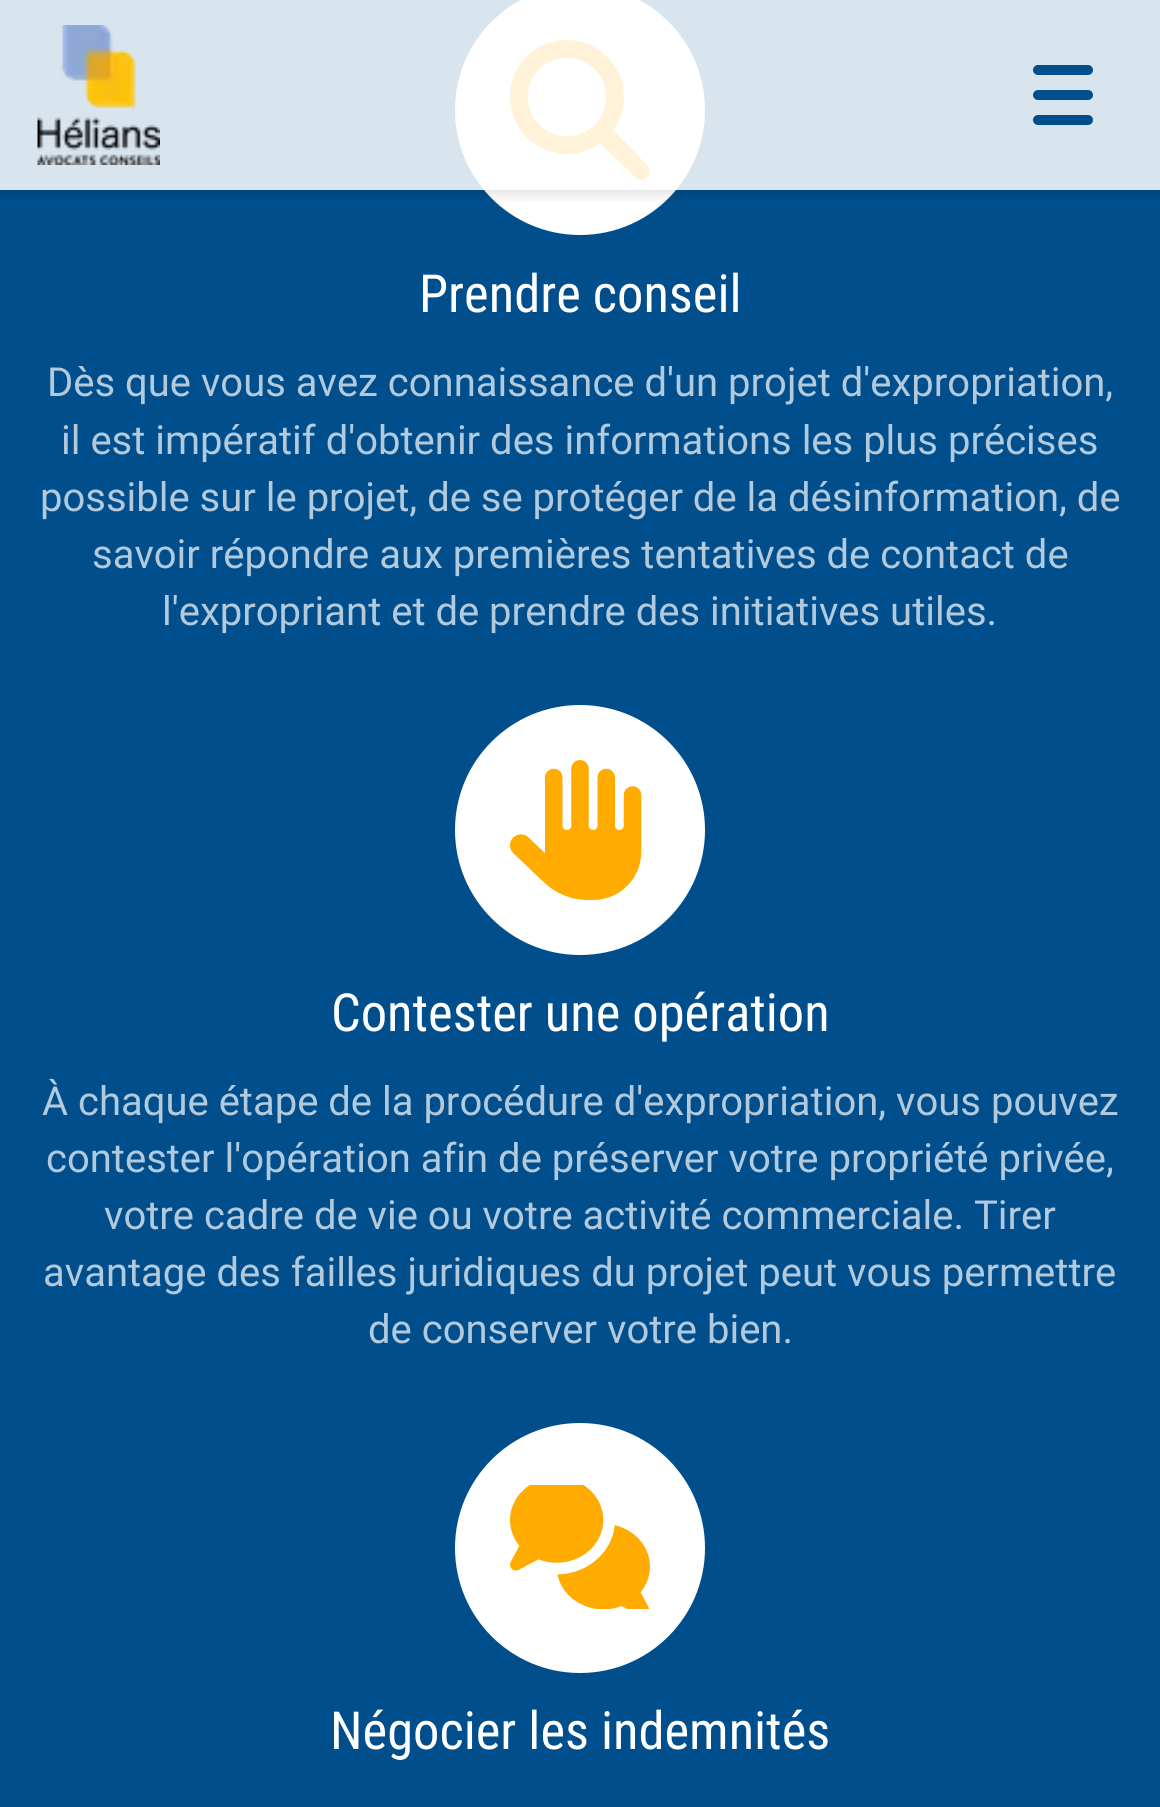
#include <cairo.h>
#include <math.h>
#include <stddef.h>

static cairo_t *ctx;

static void use_color(int r, int g, int b) {
    cairo_set_source_rgb(ctx, r / 255.0, g / 255.0, b / 255.0);
}

static void round_rect(double x, double y, double w, double h, double r) {
    cairo_new_sub_path(ctx);
    cairo_arc(ctx, x + w - r, y + h - r, r, 0, M_PI / 2);
    cairo_arc(ctx, x + r, y + h - r, r, M_PI / 2, M_PI);
    cairo_arc(ctx, x + r, y + r, r, M_PI, 1.5 * M_PI);
    cairo_arc(ctx, x + w - r, y + r, r, 1.5 * M_PI, 2 * M_PI);
    cairo_close_path(ctx);
}

static void shadow(double x, double y, double w, double h, double r, double blur, double alpha) {
    cairo_push_group_with_content(ctx, CAIRO_CONTENT_ALPHA);
    cairo_set_operator(ctx, CAIRO_OPERATOR_SOURCE);
    for (int i = 15; i >= -15 && fmin(w, h) + blur * i / 3 > 0; i -= 2) {
        double e = blur * i / 6;
        cairo_set_source_rgba(ctx, 0, 0, 0, alpha * erfc((i - 1) / 8.5) / 2);
        round_rect(x - e, y - e, w + 2 * e, h + 2 * e, fmax(0, fmin(r + e + blur * .6, fmin(w, h) / 2 + e)));
        cairo_fill(ctx);
    }
    cairo_pattern_t *soft = cairo_pop_group(ctx);
    cairo_mask(ctx, soft);
    cairo_pattern_destroy(soft);
}

static void picture(const char *path, double x, double y, double w, double h) {
    cairo_surface_t *image = cairo_image_surface_create_from_png(path);
    cairo_save(ctx);
    cairo_set_source_surface(ctx, image, x, y);
    cairo_rectangle(ctx, x, y, w, h);
    cairo_fill(ctx);
    cairo_restore(ctx);
    cairo_surface_destroy(image);
}

int main(void) {
    cairo_surface_t *surface = cairo_image_surface_create(CAIRO_FORMAT_RGB24, 1160, 1807);
    ctx = cairo_create(surface);
    cairo_font_options_t *options = cairo_font_options_create();
    cairo_font_options_set_hint_metrics(options, CAIRO_HINT_METRICS_OFF);
    cairo_font_options_set_hint_style(options, CAIRO_HINT_STYLE_NONE);
    cairo_set_font_options(ctx, options);
    cairo_set_miter_limit(ctx, 4);
    use_color(0, 78, 140);
    cairo_paint(ctx);
    use_color(255, 255, 255);
    cairo_arc(ctx, 580, 110, 125, 0, 2 * M_PI);
    cairo_fill(ctx);
    use_color(255, 171, 0);
    cairo_new_path(ctx);
    cairo_move_to(ctx, 624, 97);
    cairo_curve_to(ctx, 624, 109, 620, 121, 613, 130);
    cairo_line_to(ctx, 647, 165);
    cairo_curve_to(ctx, 651, 168, 651, 174, 647, 177);
    cairo_curve_to(ctx, 644, 181, 638, 181, 635, 177);
    cairo_line_to(ctx, 600, 143);
    cairo_curve_to(ctx, 591, 150, 579, 154, 567, 154);
    cairo_curve_to(ctx, 535, 154, 510, 128, 510, 97);
    cairo_curve_to(ctx, 510, 65, 535, 40, 567, 40);
    cairo_curve_to(ctx, 598, 40, 624, 65, 624, 97);
    cairo_close_path(ctx);
    cairo_move_to(ctx, 567, 136);
    cairo_curve_to(ctx, 589, 136, 606, 119, 606, 97);
    cairo_curve_to(ctx, 606, 75, 589, 58, 567, 58);
    cairo_curve_to(ctx, 545, 58, 528, 75, 528, 97);
    cairo_curve_to(ctx, 528, 119, 545, 136, 567, 136);
    cairo_close_path(ctx);
    cairo_fill(ctx);
    cairo_save(ctx);
    cairo_rectangle(ctx, 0, 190, 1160, 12);
    cairo_clip(ctx);
    use_color(0, 0, 0);
    shadow(0, 0, 1160, 190, 0, 9, 0.2);
    cairo_restore(ctx);
    cairo_set_source_rgba(ctx, 1, 1, 1, 0.85);
    cairo_rectangle(ctx, 0, 0, 1160, 190);
    cairo_fill(ctx);
    picture("img1.png", 37, 25, 123, 140);
    use_color(0, 78, 140);
    round_rect(1033, 90, 60, 10, 5);
    cairo_fill(ctx);
    round_rect(1033, 65, 60, 10, 5);
    cairo_fill(ctx);
    round_rect(1033, 115, 60, 10, 5);
    cairo_fill(ctx);
    cairo_select_font_face(ctx, "Roboto Condensed", CAIRO_FONT_SLANT_NORMAL, CAIRO_FONT_WEIGHT_NORMAL);
    cairo_set_font_size(ctx, 52.5);
    use_color(255, 255, 255);
    cairo_move_to(ctx, 419, 312);
    cairo_show_text(ctx, "Prendre conseil");
    cairo_select_font_face(ctx, "Roboto", CAIRO_FONT_SLANT_NORMAL, CAIRO_FONT_WEIGHT_NORMAL);
    cairo_set_font_size(ctx, 40);
    use_color(179, 202, 221);
    cairo_move_to(ctx, 47, 396);
    cairo_show_text(ctx, "Dès que vous avez connaissance d'un projet d'expropriation,");
    cairo_move_to(ctx, 61, 454);
    cairo_show_text(ctx, "il est impératif d'obtenir des informations les plus précises");
    cairo_move_to(ctx, 40, 511);
    cairo_show_text(ctx, "possible sur le projet, de se protéger de la désinformation, de");
    cairo_move_to(ctx, 92, 568);
    cairo_show_text(ctx, "savoir répondre aux premières tentatives de contact de");
    cairo_move_to(ctx, 162, 625);
    cairo_show_text(ctx, "l'expropriant et de prendre des initiatives utiles.");
    use_color(255, 255, 255);
    cairo_new_path(ctx);
    cairo_arc(ctx, 580, 830, 125, 0, 2 * M_PI);
    cairo_fill(ctx);
    picture("img2.png", 510, 760, 132, 140);
    cairo_select_font_face(ctx, "Roboto Condensed", CAIRO_FONT_SLANT_NORMAL, CAIRO_FONT_WEIGHT_NORMAL);
    cairo_set_font_size(ctx, 52.5);
    cairo_move_to(ctx, 331, 1031);
    cairo_show_text(ctx, "Contester une opération");
    cairo_select_font_face(ctx, "Roboto", CAIRO_FONT_SLANT_NORMAL, CAIRO_FONT_WEIGHT_NORMAL);
    cairo_set_font_size(ctx, 40);
    use_color(179, 202, 221);
    cairo_move_to(ctx, 42, 1115);
    cairo_show_text(ctx, "À chaque étape de la procédure d'expropriation, vous pouvez");
    cairo_move_to(ctx, 46, 1172);
    cairo_show_text(ctx, "contester l'opération afin de préserver votre propriété privée,");
    cairo_move_to(ctx, 104, 1229);
    cairo_show_text(ctx, "votre cadre de vie ou votre activité commerciale. Tirer");
    cairo_move_to(ctx, 43, 1286);
    cairo_show_text(ctx, "avantage des failles juridiques du projet peut vous permettre");
    cairo_move_to(ctx, 368, 1343);
    cairo_show_text(ctx, "de conserver votre bien.");
    use_color(255, 255, 255);
    cairo_new_path(ctx);
    cairo_arc(ctx, 580, 1548, 125, 0, 2 * M_PI);
    cairo_fill(ctx);
    picture("img3.png", 510, 1485, 140, 124);
    cairo_select_font_face(ctx, "Roboto Condensed", CAIRO_FONT_SLANT_NORMAL, CAIRO_FONT_WEIGHT_NORMAL);
    cairo_set_font_size(ctx, 52.5);
    cairo_move_to(ctx, 330, 1749);
    cairo_show_text(ctx, "Négocier les indemnités");
    cairo_surface_write_to_png(surface, "result.png");
    cairo_font_options_destroy(options);
    cairo_destroy(ctx);
    cairo_surface_destroy(surface);
    return 0;
}
